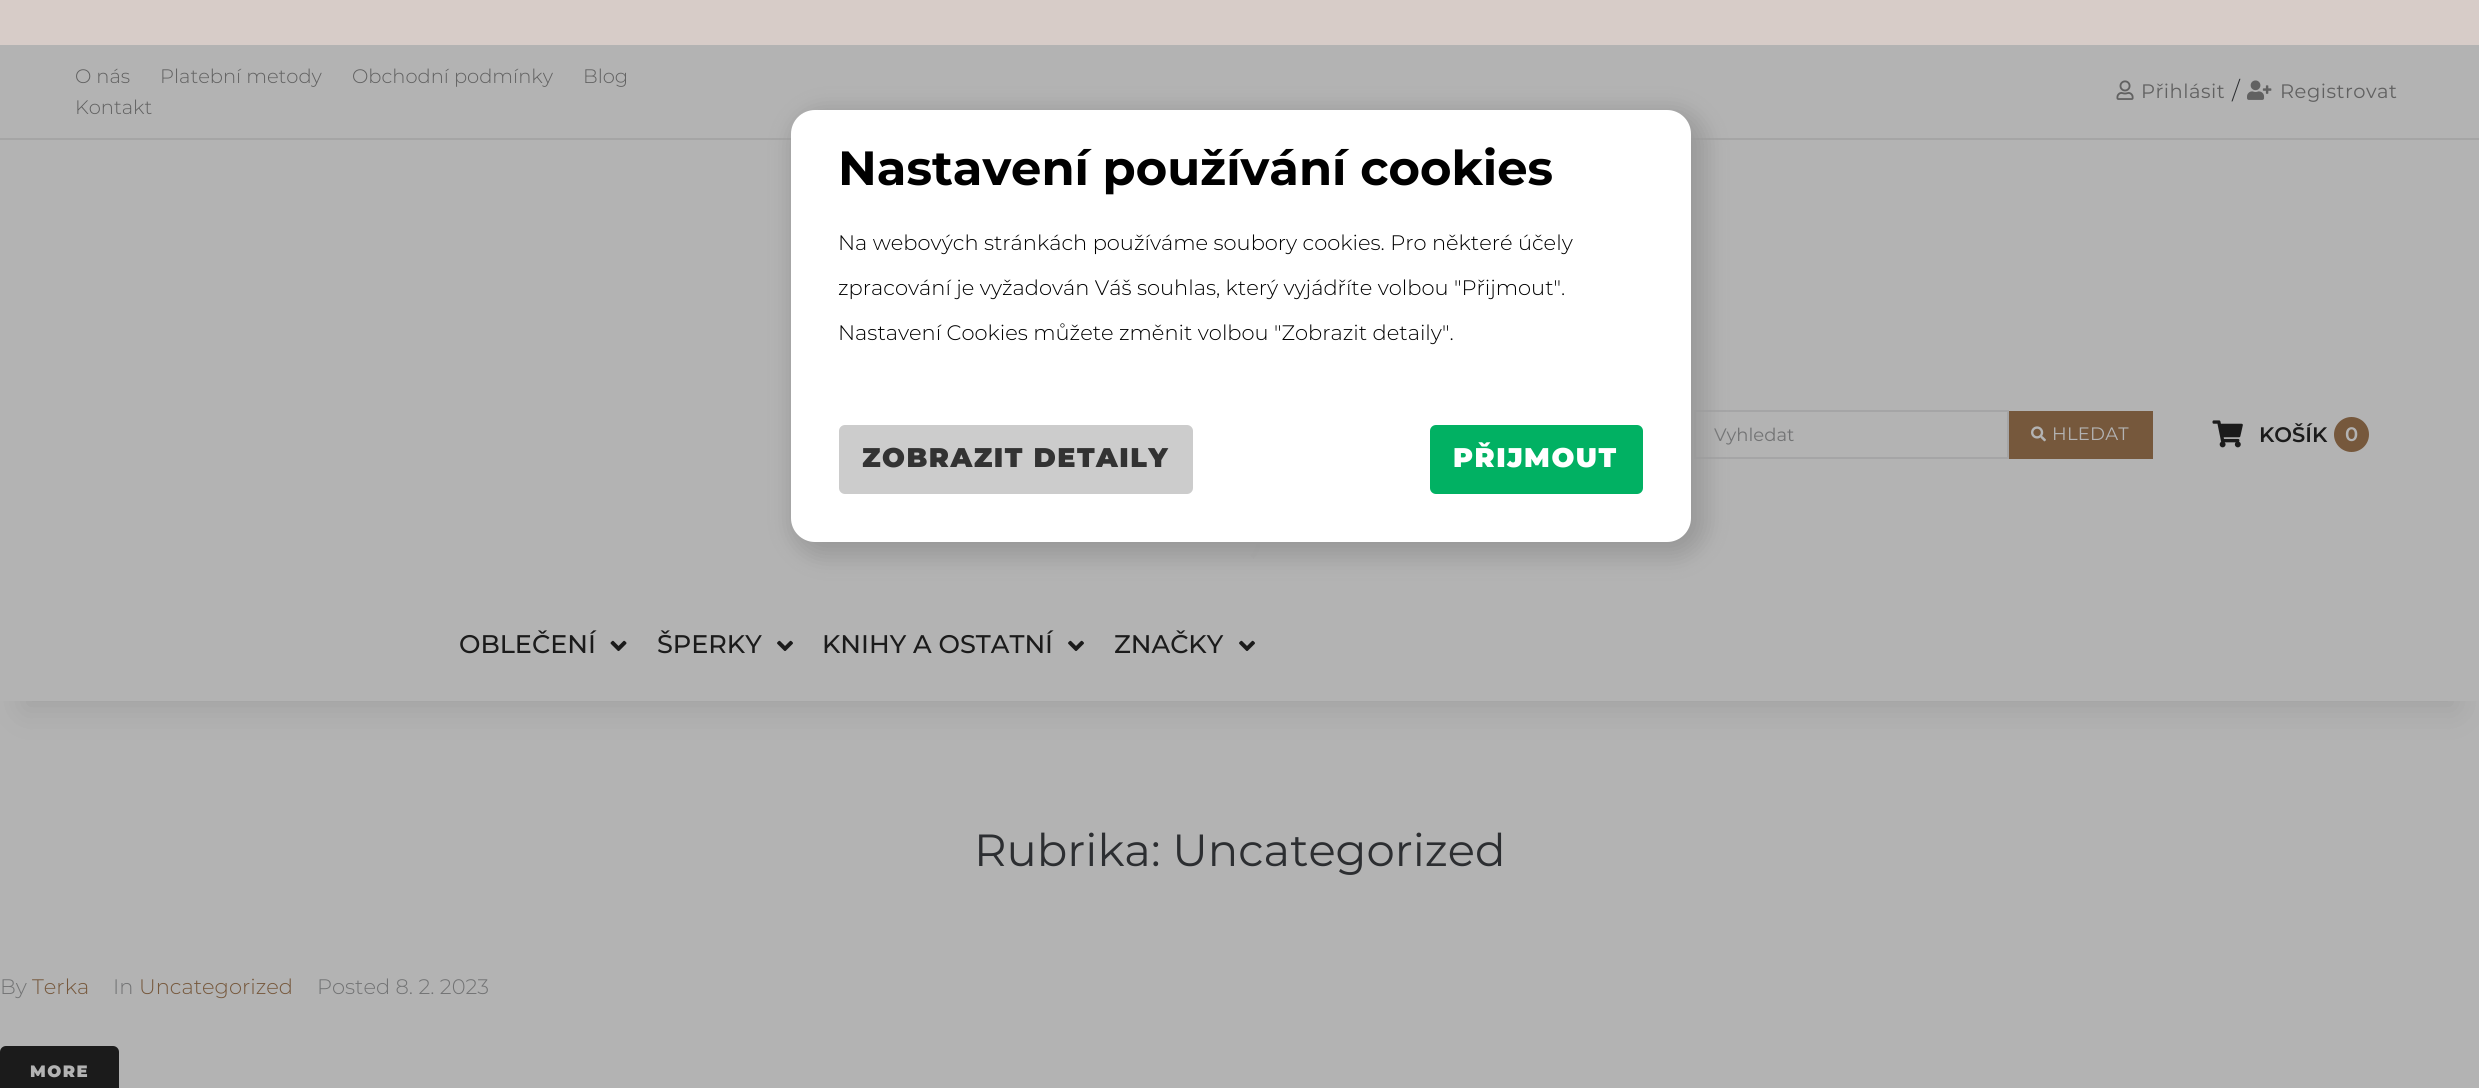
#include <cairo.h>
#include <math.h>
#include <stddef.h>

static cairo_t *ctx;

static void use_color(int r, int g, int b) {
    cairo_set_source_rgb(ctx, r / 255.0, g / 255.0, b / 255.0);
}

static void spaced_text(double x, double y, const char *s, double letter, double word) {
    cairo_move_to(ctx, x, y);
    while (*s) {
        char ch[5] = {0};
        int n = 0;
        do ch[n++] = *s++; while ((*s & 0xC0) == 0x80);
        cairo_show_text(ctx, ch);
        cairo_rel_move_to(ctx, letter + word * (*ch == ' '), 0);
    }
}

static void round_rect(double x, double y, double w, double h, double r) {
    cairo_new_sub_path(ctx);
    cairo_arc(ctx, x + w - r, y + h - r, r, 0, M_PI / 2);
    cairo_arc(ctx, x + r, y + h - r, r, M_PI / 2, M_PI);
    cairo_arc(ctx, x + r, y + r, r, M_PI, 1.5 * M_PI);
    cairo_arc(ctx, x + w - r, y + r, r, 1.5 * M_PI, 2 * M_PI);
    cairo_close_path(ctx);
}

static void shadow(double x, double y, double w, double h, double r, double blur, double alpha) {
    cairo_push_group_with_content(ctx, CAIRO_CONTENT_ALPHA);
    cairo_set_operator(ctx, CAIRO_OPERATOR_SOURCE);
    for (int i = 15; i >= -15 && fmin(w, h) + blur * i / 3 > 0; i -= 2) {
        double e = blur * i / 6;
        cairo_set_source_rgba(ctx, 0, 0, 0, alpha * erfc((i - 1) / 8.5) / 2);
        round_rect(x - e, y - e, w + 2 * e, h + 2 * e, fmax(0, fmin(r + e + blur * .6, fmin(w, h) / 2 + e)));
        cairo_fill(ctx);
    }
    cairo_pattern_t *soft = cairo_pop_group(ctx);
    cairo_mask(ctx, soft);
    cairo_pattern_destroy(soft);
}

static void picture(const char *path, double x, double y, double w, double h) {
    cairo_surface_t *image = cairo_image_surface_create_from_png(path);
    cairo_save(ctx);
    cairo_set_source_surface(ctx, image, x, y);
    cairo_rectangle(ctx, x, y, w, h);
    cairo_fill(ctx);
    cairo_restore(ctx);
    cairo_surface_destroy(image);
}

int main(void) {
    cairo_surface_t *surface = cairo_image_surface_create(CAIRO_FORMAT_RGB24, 2479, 1088);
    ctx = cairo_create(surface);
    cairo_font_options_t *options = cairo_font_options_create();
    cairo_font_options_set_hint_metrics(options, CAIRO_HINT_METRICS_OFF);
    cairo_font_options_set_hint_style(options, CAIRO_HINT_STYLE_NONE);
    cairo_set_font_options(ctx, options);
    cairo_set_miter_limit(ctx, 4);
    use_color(179, 179, 179);
    cairo_paint(ctx);
    use_color(215, 204, 200);
    cairo_rectangle(ctx, 0, 0, 2479, 45);
    cairo_fill(ctx);
    use_color(165, 165, 165);
    cairo_rectangle(ctx, 0, 138, 2479, 2);
    cairo_fill(ctx);
    cairo_select_font_face(ctx, "Montserrat Light", CAIRO_FONT_SLANT_NORMAL, CAIRO_FONT_WEIGHT_NORMAL);
    cairo_set_font_size(ctx, 19.5);
    use_color(97, 97, 97);
    cairo_move_to(ctx, 75, 83);
    cairo_show_text(ctx, "O nás");
    cairo_move_to(ctx, 160, 83);
    cairo_show_text(ctx, "Platební metody");
    cairo_move_to(ctx, 352, 83);
    cairo_show_text(ctx, "Obchodní podmínky");
    cairo_move_to(ctx, 583, 83);
    cairo_show_text(ctx, "Blog");
    cairo_move_to(ctx, 75, 114);
    cairo_show_text(ctx, "Kontakt");
    picture("img1.png", 2116, 80, 18, 20);
    cairo_select_font_face(ctx, "Montserrat", CAIRO_FONT_SLANT_NORMAL, CAIRO_FONT_WEIGHT_NORMAL);
    spaced_text(2141, 98, "Přihlásit", 0.5, 0);
    cairo_select_font_face(ctx, "Montserrat Light", CAIRO_FONT_SLANT_NORMAL, CAIRO_FONT_WEIGHT_NORMAL);
    cairo_set_font_size(ctx, 24);
    use_color(44, 46, 49);
    cairo_move_to(ctx, 2232, 99);
    cairo_show_text(ctx, "/");
    picture("img2.png", 2247, 80, 25, 20);
    cairo_select_font_face(ctx, "Montserrat", CAIRO_FONT_SLANT_NORMAL, CAIRO_FONT_WEIGHT_NORMAL);
    cairo_set_font_size(ctx, 19.5);
    use_color(97, 97, 97);
    spaced_text(2280, 98, "Registrovat", 0.5, 0);
    cairo_save(ctx);
    cairo_set_fill_rule(ctx, CAIRO_FILL_RULE_EVEN_ODD);
    cairo_new_path(ctx);
    cairo_move_to(ctx, 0, 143);
    cairo_line_to(ctx, 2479, 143);
    cairo_line_to(ctx, 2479, 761);
    cairo_line_to(ctx, 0, 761);
    cairo_close_path(ctx);
    cairo_move_to(ctx, 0, 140);
    cairo_line_to(ctx, 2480, 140);
    cairo_line_to(ctx, 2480, 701);
    cairo_line_to(ctx, 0, 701);
    cairo_close_path(ctx);
    cairo_clip(ctx);
    use_color(4, 4, 4);
    shadow(23, 194, 2434, 516, 0, 16.5, 0.1);
    cairo_restore(ctx);
    cairo_rectangle(ctx, 1695, 411, 313, 47);
    use_color(165, 165, 166);
    cairo_stroke(ctx);
    cairo_set_font_size(ctx, 18);
    use_color(114, 115, 116);
    cairo_move_to(ctx, 1714, 441);
    cairo_show_text(ctx, "Vyhledat");
    use_color(118, 88, 60);
    cairo_rectangle(ctx, 2009, 411, 144, 48);
    cairo_fill(ctx);
    picture("img3.png", 2031, 426, 15, 16);
    use_color(179, 179, 179);
    spaced_text(2052, 440, "HLEDAT", 0.25, 0);
    picture("img4.png", 2212, 420, 31, 28);
    cairo_select_font_face(ctx, "Montserrat SemiBold", CAIRO_FONT_SLANT_NORMAL, CAIRO_FONT_WEIGHT_NORMAL);
    cairo_set_font_size(ctx, 21);
    use_color(27, 27, 27);
    cairo_move_to(ctx, 2259, 442);
    cairo_show_text(ctx, "KOŠÍK");
    use_color(118, 88, 60);
    cairo_new_path(ctx);
    cairo_arc(ctx, 2351.5, 434.5, 17.5, 0, 2 * M_PI);
    cairo_fill(ctx);
    cairo_set_font_size(ctx, 19.5);
    use_color(179, 179, 179);
    cairo_move_to(ctx, 2345, 441);
    cairo_show_text(ctx, "0");
    cairo_select_font_face(ctx, "Montserrat Medium", CAIRO_FONT_SLANT_NORMAL, CAIRO_FONT_WEIGHT_NORMAL);
    cairo_set_font_size(ctx, 25.5);
    use_color(27, 27, 27);
    cairo_move_to(ctx, 459, 653);
    cairo_show_text(ctx, "OBLEČENÍ");
    picture("img5.png", 610, 640, 17, 12);
    cairo_move_to(ctx, 657, 653);
    cairo_show_text(ctx, "ŠPERKY");
    picture("img6.png", 777, 640, 16, 11);
    cairo_move_to(ctx, 822, 653);
    cairo_show_text(ctx, "KNIHY A OSTATNÍ");
    picture("img6.png", 1068, 640, 16, 11);
    cairo_move_to(ctx, 1114, 653);
    cairo_show_text(ctx, "ZNAČKY");
    picture("img6.png", 1239, 640, 16, 11);
    cairo_select_font_face(ctx, "Montserrat", CAIRO_FONT_SLANT_NORMAL, CAIRO_FONT_WEIGHT_NORMAL);
    cairo_set_font_size(ctx, 45);
    use_color(44, 46, 49);
    cairo_move_to(ctx, 974, 866);
    cairo_show_text(ctx, "Rubrika: Uncategorized");
    cairo_select_font_face(ctx, "Montserrat Light", CAIRO_FONT_SLANT_NORMAL, CAIRO_FONT_WEIGHT_NORMAL);
    cairo_set_font_size(ctx, 21);
    use_color(114, 115, 116);
    cairo_move_to(ctx, 0, 994);
    cairo_show_text(ctx, "By");
    use_color(118, 88, 60);
    cairo_move_to(ctx, 32, 994);
    cairo_show_text(ctx, "Terka");
    use_color(114, 115, 116);
    cairo_move_to(ctx, 113, 994);
    cairo_show_text(ctx, "In");
    use_color(118, 88, 60);
    cairo_move_to(ctx, 139, 994);
    cairo_show_text(ctx, "Uncategorized");
    use_color(114, 115, 116);
    cairo_move_to(ctx, 317, 994);
    cairo_show_text(ctx, "Posted 8. 2. 2023");
    use_color(27, 27, 27);
    round_rect(0, 1046, 119, 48, 6);
    cairo_fill(ctx);
    cairo_select_font_face(ctx, "Montserrat Black", CAIRO_FONT_SLANT_NORMAL, CAIRO_FONT_WEIGHT_NORMAL);
    cairo_set_font_size(ctx, 16.5);
    use_color(179, 179, 179);
    spaced_text(30, 1077, "MORE", 1.5, 0);
    cairo_new_path(ctx);
    cairo_move_to(ctx, 1223, 528.5);
    cairo_curve_to(ctx, 1237, 514.5, 1261, 527.5, 1257.5, 547);
    cairo_curve_to(ctx, 1256.5, 551, 1254.5, 554.5, 1252, 557.5);
    use_color(175, 175, 175);
    cairo_set_line_width(ctx, 4.5);
    cairo_stroke(ctx);
    use_color(153, 153, 153);
    shadow(791, 110, 915, 447, 32, 11, 1);
    use_color(255, 255, 255);
    round_rect(791, 110, 900, 432, 24);
    cairo_fill(ctx);
    cairo_select_font_face(ctx, "Montserrat", CAIRO_FONT_SLANT_NORMAL, CAIRO_FONT_WEIGHT_BOLD);
    cairo_set_font_size(ctx, 48);
    use_color(0, 0, 0);
    cairo_move_to(ctx, 838, 185);
    cairo_show_text(ctx, "Nastavení používání cookies");
    cairo_select_font_face(ctx, "Montserrat Light", CAIRO_FONT_SLANT_NORMAL, CAIRO_FONT_WEIGHT_NORMAL);
    cairo_set_font_size(ctx, 21);
    cairo_move_to(ctx, 838, 250);
    cairo_show_text(ctx, "Na webových stránkách používáme soubory cookies. Pro některé účely");
    cairo_move_to(ctx, 838, 295);
    cairo_show_text(ctx, "zpracování je vyžadován Váš souhlas, který vyjádříte volbou \"Přijmout\".");
    cairo_move_to(ctx, 838, 340);
    cairo_show_text(ctx, "Nastavení Cookies můžete změnit volbou \"Zobrazit detaily\".");
    use_color(204, 204, 204);
    round_rect(839, 425, 354, 69, 6);
    cairo_fill(ctx);
    cairo_select_font_face(ctx, "Montserrat Black", CAIRO_FONT_SLANT_NORMAL, CAIRO_FONT_WEIGHT_NORMAL);
    cairo_set_font_size(ctx, 27);
    use_color(51, 51, 51);
    spaced_text(862, 467, "ZOBRAZIT DETAILY", 1.5, 0);
    use_color(1, 177, 99);
    round_rect(1430, 425, 213, 69, 6);
    cairo_fill(ctx);
    use_color(255, 255, 255);
    spaced_text(1453, 467, "PŘIJMOUT", 1.5, 0);
    cairo_surface_write_to_png(surface, "result.png");
    cairo_font_options_destroy(options);
    cairo_destroy(ctx);
    cairo_surface_destroy(surface);
    return 0;
}
